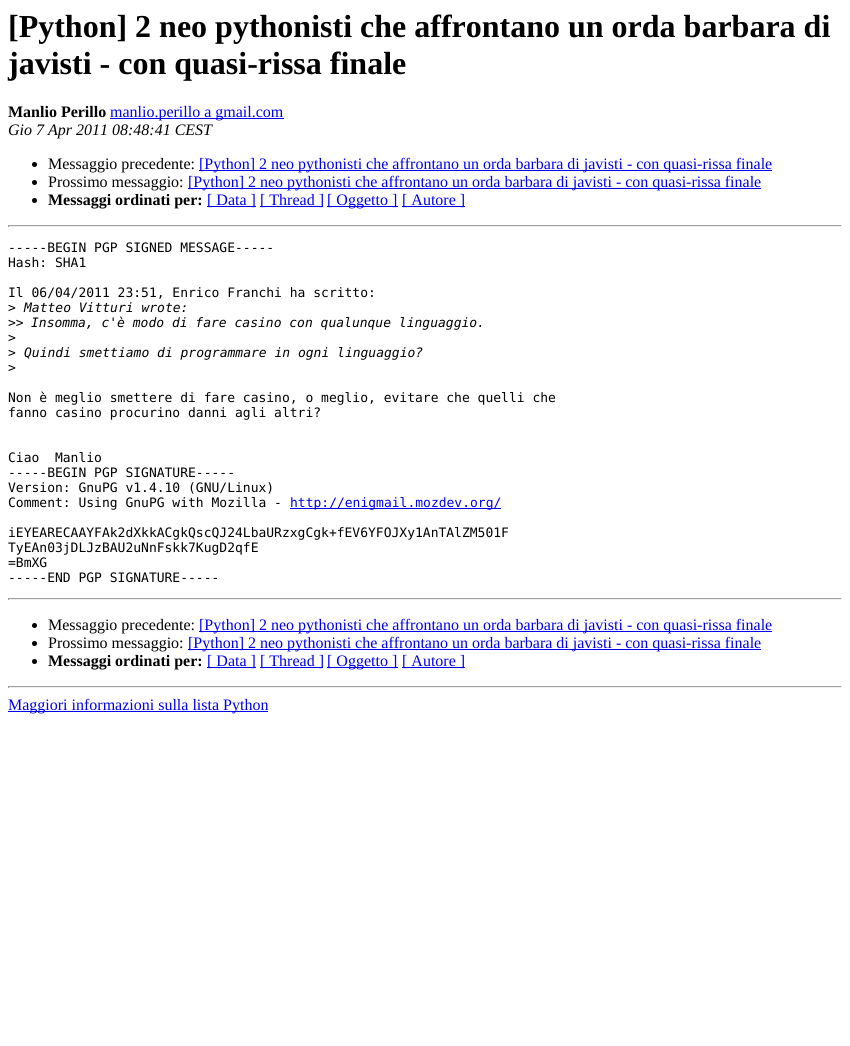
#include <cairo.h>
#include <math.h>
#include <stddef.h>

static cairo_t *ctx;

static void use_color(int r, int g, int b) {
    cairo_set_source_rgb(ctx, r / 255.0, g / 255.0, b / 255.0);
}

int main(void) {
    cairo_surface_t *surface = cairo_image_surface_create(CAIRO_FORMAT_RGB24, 850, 1046);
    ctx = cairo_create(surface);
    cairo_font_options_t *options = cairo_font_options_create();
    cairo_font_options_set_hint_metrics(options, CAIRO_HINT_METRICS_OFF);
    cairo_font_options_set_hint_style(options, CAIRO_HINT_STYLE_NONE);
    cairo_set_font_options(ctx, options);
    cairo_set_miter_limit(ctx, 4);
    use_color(255, 255, 255);
    cairo_paint(ctx);
    cairo_select_font_face(ctx, "Liberation Serif", CAIRO_FONT_SLANT_NORMAL, CAIRO_FONT_WEIGHT_BOLD);
    cairo_set_font_size(ctx, 32);
    use_color(0, 0, 0);
    cairo_move_to(ctx, 8, 37);
    cairo_show_text(ctx, "[Python] 2 neo pythonisti che affrontano un orda barbara di");
    cairo_move_to(ctx, 8, 74);
    cairo_show_text(ctx, "javisti - con quasi-rissa finale");
    cairo_set_font_size(ctx, 16);
    cairo_move_to(ctx, 8, 117);
    cairo_show_text(ctx, "Manlio Perillo");
    use_color(0, 0, 238);
    cairo_rectangle(ctx, 110, 118, 174, 1);
    cairo_fill(ctx);
    cairo_select_font_face(ctx, "Liberation Serif", CAIRO_FONT_SLANT_NORMAL, CAIRO_FONT_WEIGHT_NORMAL);
    cairo_move_to(ctx, 110, 117);
    cairo_show_text(ctx, "manlio.perillo a gmail.com");
    cairo_select_font_face(ctx, "Liberation Serif", CAIRO_FONT_SLANT_ITALIC, CAIRO_FONT_WEIGHT_NORMAL);
    use_color(0, 0, 0);
    cairo_move_to(ctx, 8, 135);
    cairo_show_text(ctx, "Gio 7 Apr 2011 08:48:41 CEST");
    cairo_new_path(ctx);
    cairo_arc(ctx, 34.5, 164.5, 2.5, 0, 2 * M_PI);
    cairo_fill(ctx);
    cairo_select_font_face(ctx, "Liberation Serif", CAIRO_FONT_SLANT_NORMAL, CAIRO_FONT_WEIGHT_NORMAL);
    cairo_move_to(ctx, 48, 169);
    cairo_show_text(ctx, "Messaggio precedente:");
    use_color(0, 0, 238);
    cairo_rectangle(ctx, 199, 170, 573, 1);
    cairo_fill(ctx);
    cairo_move_to(ctx, 199, 169);
    cairo_show_text(ctx, "[Python] 2 neo pythonisti che affrontano un orda barbara di javisti - con quasi-rissa finale");
    use_color(0, 0, 0);
    cairo_new_path(ctx);
    cairo_arc(ctx, 34.5, 182.5, 2.5, 0, 2 * M_PI);
    cairo_fill(ctx);
    cairo_move_to(ctx, 48, 187);
    cairo_show_text(ctx, "Prossimo messaggio:");
    use_color(0, 0, 238);
    cairo_rectangle(ctx, 188, 188, 573, 1);
    cairo_fill(ctx);
    cairo_move_to(ctx, 188, 187);
    cairo_show_text(ctx, "[Python] 2 neo pythonisti che affrontano un orda barbara di javisti - con quasi-rissa finale");
    use_color(0, 0, 0);
    cairo_new_path(ctx);
    cairo_arc(ctx, 34.5, 200.5, 2.5, 0, 2 * M_PI);
    cairo_fill(ctx);
    cairo_select_font_face(ctx, "Liberation Serif", CAIRO_FONT_SLANT_NORMAL, CAIRO_FONT_WEIGHT_BOLD);
    cairo_move_to(ctx, 48, 205);
    cairo_show_text(ctx, "Messaggi ordinati per:");
    use_color(0, 0, 238);
    cairo_rectangle(ctx, 207, 206, 49, 1);
    cairo_fill(ctx);
    cairo_select_font_face(ctx, "Liberation Serif", CAIRO_FONT_SLANT_NORMAL, CAIRO_FONT_WEIGHT_NORMAL);
    cairo_move_to(ctx, 207, 205);
    cairo_show_text(ctx, "[ Data ]");
    cairo_rectangle(ctx, 260, 206, 63, 1);
    cairo_fill(ctx);
    cairo_move_to(ctx, 260, 205);
    cairo_show_text(ctx, "[ Thread ]");
    cairo_rectangle(ctx, 327, 206, 71, 1);
    cairo_fill(ctx);
    cairo_move_to(ctx, 327, 205);
    cairo_show_text(ctx, "[ Oggetto ]");
    cairo_rectangle(ctx, 402, 206, 63, 1);
    cairo_fill(ctx);
    cairo_move_to(ctx, 402, 205);
    cairo_show_text(ctx, "[ Autore ]");
    use_color(159, 159, 159);
    cairo_rectangle(ctx, 8, 225, 834, 1);
    cairo_fill(ctx);
    use_color(238, 238, 238);
    cairo_rectangle(ctx, 841, 225, 1, 2);
    cairo_fill(ctx);
    cairo_rectangle(ctx, 8, 226, 834, 1);
    cairo_fill(ctx);
    use_color(159, 159, 159);
    cairo_rectangle(ctx, 8, 225, 1, 2);
    cairo_fill(ctx);
    cairo_select_font_face(ctx, "DejaVu Sans Mono", CAIRO_FONT_SLANT_NORMAL, CAIRO_FONT_WEIGHT_NORMAL);
    cairo_set_font_size(ctx, 13);
    use_color(0, 0, 0);
    cairo_move_to(ctx, 8, 252);
    cairo_show_text(ctx, "-----BEGIN PGP SIGNED MESSAGE-----");
    cairo_move_to(ctx, 8, 267);
    cairo_show_text(ctx, "Hash: SHA1");
    cairo_move_to(ctx, 8, 297);
    cairo_show_text(ctx, "Il 06/04/2011 23:51, Enrico Franchi ha scritto:");
    cairo_move_to(ctx, 8, 312);
    cairo_show_text(ctx, ">");
    cairo_select_font_face(ctx, "DejaVu Sans Mono", CAIRO_FONT_SLANT_ITALIC, CAIRO_FONT_WEIGHT_NORMAL);
    cairo_move_to(ctx, 24, 312);
    cairo_show_text(ctx, "Matteo Vitturi wrote:");
    cairo_select_font_face(ctx, "DejaVu Sans Mono", CAIRO_FONT_SLANT_NORMAL, CAIRO_FONT_WEIGHT_NORMAL);
    cairo_move_to(ctx, 8, 327);
    cairo_show_text(ctx, ">>");
    cairo_select_font_face(ctx, "DejaVu Sans Mono", CAIRO_FONT_SLANT_ITALIC, CAIRO_FONT_WEIGHT_NORMAL);
    cairo_move_to(ctx, 31, 327);
    cairo_show_text(ctx, "Insomma, c'è modo di fare casino con qualunque linguaggio.");
    cairo_select_font_face(ctx, "DejaVu Sans Mono", CAIRO_FONT_SLANT_NORMAL, CAIRO_FONT_WEIGHT_NORMAL);
    cairo_move_to(ctx, 8, 342);
    cairo_show_text(ctx, ">");
    cairo_move_to(ctx, 8, 357);
    cairo_show_text(ctx, ">");
    cairo_select_font_face(ctx, "DejaVu Sans Mono", CAIRO_FONT_SLANT_ITALIC, CAIRO_FONT_WEIGHT_NORMAL);
    cairo_move_to(ctx, 24, 357);
    cairo_show_text(ctx, "Quindi smettiamo di programmare in ogni linguaggio?");
    cairo_select_font_face(ctx, "DejaVu Sans Mono", CAIRO_FONT_SLANT_NORMAL, CAIRO_FONT_WEIGHT_NORMAL);
    cairo_move_to(ctx, 8, 372);
    cairo_show_text(ctx, ">");
    cairo_move_to(ctx, 8, 402);
    cairo_show_text(ctx, "Non è meglio smettere di fare casino, o meglio, evitare che quelli che");
    cairo_move_to(ctx, 8, 417);
    cairo_show_text(ctx, "fanno casino procurino danni agli altri?");
    cairo_move_to(ctx, 8, 462);
    cairo_show_text(ctx, "Ciao  Manlio");
    cairo_move_to(ctx, 8, 477);
    cairo_show_text(ctx, "-----BEGIN PGP SIGNATURE-----");
    cairo_move_to(ctx, 8, 492);
    cairo_show_text(ctx, "Version: GnuPG v1.4.10 (GNU/Linux)");
    cairo_move_to(ctx, 8, 507);
    cairo_show_text(ctx, "Comment: Using GnuPG with Mozilla -");
    use_color(0, 0, 238);
    cairo_rectangle(ctx, 290, 508, 211, 1);
    cairo_fill(ctx);
    cairo_move_to(ctx, 290, 507);
    cairo_show_text(ctx, "http://enigmail.mozdev.org/");
    use_color(0, 0, 0);
    cairo_move_to(ctx, 8, 537);
    cairo_show_text(ctx, "iEYEARECAAYFAk2dXkkACgkQscQJ24LbaURzxgCgk+fEV6YFOJXy1AnTAlZM501F");
    cairo_move_to(ctx, 8, 552);
    cairo_show_text(ctx, "TyEAn03jDLJzBAU2uNnFskk7KugD2qfE");
    cairo_move_to(ctx, 8, 567);
    cairo_show_text(ctx, "=BmXG");
    cairo_move_to(ctx, 8, 582);
    cairo_show_text(ctx, "-----END PGP SIGNATURE-----");
    use_color(159, 159, 159);
    cairo_rectangle(ctx, 8, 598, 834, 1);
    cairo_fill(ctx);
    use_color(238, 238, 238);
    cairo_rectangle(ctx, 841, 598, 1, 2);
    cairo_fill(ctx);
    cairo_rectangle(ctx, 8, 599, 834, 1);
    cairo_fill(ctx);
    use_color(159, 159, 159);
    cairo_rectangle(ctx, 8, 598, 1, 2);
    cairo_fill(ctx);
    use_color(0, 0, 0);
    cairo_arc(ctx, 34.5, 625.5, 2.5, 0, 2 * M_PI);
    cairo_fill(ctx);
    cairo_select_font_face(ctx, "Liberation Serif", CAIRO_FONT_SLANT_NORMAL, CAIRO_FONT_WEIGHT_NORMAL);
    cairo_set_font_size(ctx, 16);
    cairo_move_to(ctx, 48, 630);
    cairo_show_text(ctx, "Messaggio precedente:");
    use_color(0, 0, 238);
    cairo_rectangle(ctx, 199, 631, 573, 1);
    cairo_fill(ctx);
    cairo_move_to(ctx, 199, 630);
    cairo_show_text(ctx, "[Python] 2 neo pythonisti che affrontano un orda barbara di javisti - con quasi-rissa finale");
    use_color(0, 0, 0);
    cairo_new_path(ctx);
    cairo_arc(ctx, 34.5, 643.5, 2.5, 0, 2 * M_PI);
    cairo_fill(ctx);
    cairo_move_to(ctx, 48, 648);
    cairo_show_text(ctx, "Prossimo messaggio:");
    use_color(0, 0, 238);
    cairo_rectangle(ctx, 188, 649, 573, 1);
    cairo_fill(ctx);
    cairo_move_to(ctx, 188, 648);
    cairo_show_text(ctx, "[Python] 2 neo pythonisti che affrontano un orda barbara di javisti - con quasi-rissa finale");
    use_color(0, 0, 0);
    cairo_new_path(ctx);
    cairo_arc(ctx, 34.5, 661.5, 2.5, 0, 2 * M_PI);
    cairo_fill(ctx);
    cairo_select_font_face(ctx, "Liberation Serif", CAIRO_FONT_SLANT_NORMAL, CAIRO_FONT_WEIGHT_BOLD);
    cairo_move_to(ctx, 48, 666);
    cairo_show_text(ctx, "Messaggi ordinati per:");
    use_color(0, 0, 238);
    cairo_rectangle(ctx, 207, 667, 49, 1);
    cairo_fill(ctx);
    cairo_select_font_face(ctx, "Liberation Serif", CAIRO_FONT_SLANT_NORMAL, CAIRO_FONT_WEIGHT_NORMAL);
    cairo_move_to(ctx, 207, 666);
    cairo_show_text(ctx, "[ Data ]");
    cairo_rectangle(ctx, 260, 667, 63, 1);
    cairo_fill(ctx);
    cairo_move_to(ctx, 260, 666);
    cairo_show_text(ctx, "[ Thread ]");
    cairo_rectangle(ctx, 327, 667, 71, 1);
    cairo_fill(ctx);
    cairo_move_to(ctx, 327, 666);
    cairo_show_text(ctx, "[ Oggetto ]");
    cairo_rectangle(ctx, 402, 667, 63, 1);
    cairo_fill(ctx);
    cairo_move_to(ctx, 402, 666);
    cairo_show_text(ctx, "[ Autore ]");
    use_color(159, 159, 159);
    cairo_rectangle(ctx, 8, 686, 834, 1);
    cairo_fill(ctx);
    use_color(238, 238, 238);
    cairo_rectangle(ctx, 841, 686, 1, 2);
    cairo_fill(ctx);
    cairo_rectangle(ctx, 8, 687, 834, 1);
    cairo_fill(ctx);
    use_color(159, 159, 159);
    cairo_rectangle(ctx, 8, 686, 1, 2);
    cairo_fill(ctx);
    use_color(0, 0, 238);
    cairo_rectangle(ctx, 8, 711, 260, 1);
    cairo_fill(ctx);
    cairo_move_to(ctx, 8, 710);
    cairo_show_text(ctx, "Maggiori informazioni sulla lista Python");
    cairo_surface_write_to_png(surface, "result.png");
    cairo_font_options_destroy(options);
    cairo_destroy(ctx);
    cairo_surface_destroy(surface);
    return 0;
}
